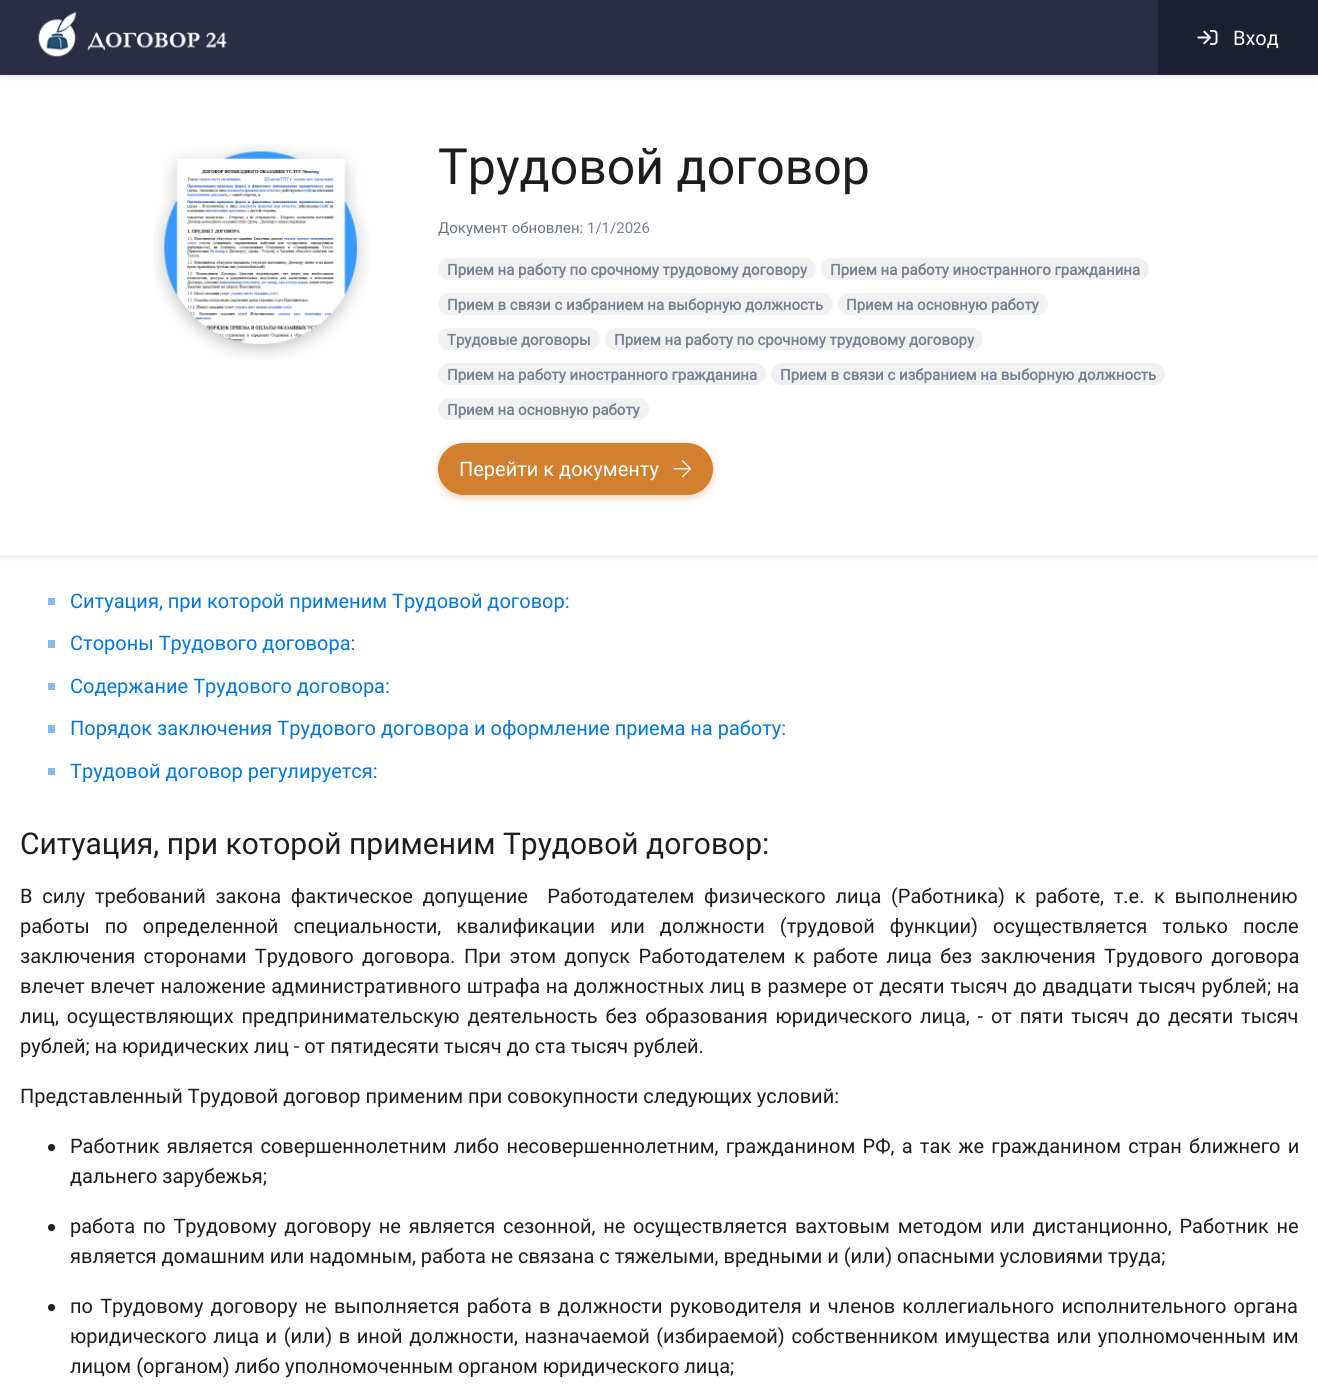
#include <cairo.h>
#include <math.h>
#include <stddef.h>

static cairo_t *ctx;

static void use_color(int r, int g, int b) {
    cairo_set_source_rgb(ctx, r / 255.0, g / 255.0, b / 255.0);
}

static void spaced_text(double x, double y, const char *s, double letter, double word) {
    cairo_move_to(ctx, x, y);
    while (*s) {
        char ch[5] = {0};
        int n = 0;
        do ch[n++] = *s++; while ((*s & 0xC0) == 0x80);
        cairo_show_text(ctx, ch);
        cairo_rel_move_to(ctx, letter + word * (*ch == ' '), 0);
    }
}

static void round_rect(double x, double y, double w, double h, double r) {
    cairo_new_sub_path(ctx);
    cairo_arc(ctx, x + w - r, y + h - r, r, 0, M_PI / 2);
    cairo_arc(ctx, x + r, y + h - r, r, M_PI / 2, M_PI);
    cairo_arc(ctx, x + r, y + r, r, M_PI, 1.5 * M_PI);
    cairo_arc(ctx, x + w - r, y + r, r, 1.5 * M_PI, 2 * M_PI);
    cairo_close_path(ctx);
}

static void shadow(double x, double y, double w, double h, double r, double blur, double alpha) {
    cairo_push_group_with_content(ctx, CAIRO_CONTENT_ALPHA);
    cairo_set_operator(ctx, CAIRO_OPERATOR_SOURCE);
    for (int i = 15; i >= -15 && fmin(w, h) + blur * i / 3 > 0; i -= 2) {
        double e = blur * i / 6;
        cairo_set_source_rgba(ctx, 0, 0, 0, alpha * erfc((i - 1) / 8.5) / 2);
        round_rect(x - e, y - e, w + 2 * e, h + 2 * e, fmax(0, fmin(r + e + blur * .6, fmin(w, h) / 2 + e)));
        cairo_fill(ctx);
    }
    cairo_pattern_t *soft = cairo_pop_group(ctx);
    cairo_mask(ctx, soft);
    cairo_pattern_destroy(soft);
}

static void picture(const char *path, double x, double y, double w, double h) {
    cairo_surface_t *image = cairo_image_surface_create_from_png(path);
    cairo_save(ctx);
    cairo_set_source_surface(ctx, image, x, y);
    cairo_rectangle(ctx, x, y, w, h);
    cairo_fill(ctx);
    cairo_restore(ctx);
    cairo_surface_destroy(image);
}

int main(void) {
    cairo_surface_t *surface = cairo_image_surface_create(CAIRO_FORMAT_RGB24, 1318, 1386);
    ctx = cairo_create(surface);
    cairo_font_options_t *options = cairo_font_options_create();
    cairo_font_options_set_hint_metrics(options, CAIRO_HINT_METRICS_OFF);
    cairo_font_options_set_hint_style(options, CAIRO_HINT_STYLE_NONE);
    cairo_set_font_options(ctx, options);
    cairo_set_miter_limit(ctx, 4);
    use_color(255, 255, 255);
    cairo_paint(ctx);
    use_color(0, 0, 0);
    shadow(0, 78, 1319, 480, 0, 2.5, 0.07);
    use_color(255, 255, 255);
    cairo_rectangle(ctx, 0, 75, 1318, 480);
    cairo_fill(ctx);
    use_color(0, 0, 0);
    shadow(0, 3, 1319, 75, 0, 2.5, 0.07);
    use_color(43, 46, 67);
    cairo_rectangle(ctx, 0, 0, 1158, 75);
    cairo_fill(ctx);
    picture("img1.png", 38, 12, 189, 45);
    use_color(29, 32, 48);
    cairo_rectangle(ctx, 1158, 0, 160, 75);
    cairo_fill(ctx);
    picture("img2.png", 1197, 30, 21, 15);
    cairo_select_font_face(ctx, "Roboto", CAIRO_FONT_SLANT_NORMAL, CAIRO_FONT_WEIGHT_NORMAL);
    cairo_set_font_size(ctx, 20);
    use_color(248, 249, 250);
    cairo_move_to(ctx, 1233, 45);
    cairo_show_text(ctx, "Вход");
    picture("img3.png", 153, 144, 216, 216);
    cairo_set_font_size(ctx, 50);
    use_color(29, 29, 31);
    cairo_move_to(ctx, 438, 184);
    cairo_show_text(ctx, "Трудовой договор");
    cairo_set_font_size(ctx, 15);
    use_color(108, 117, 125);
    cairo_move_to(ctx, 438, 233);
    cairo_show_text(ctx, "Документ обновлен:");
    use_color(118, 128, 147);
    cairo_move_to(ctx, 587, 233);
    cairo_show_text(ctx, "1/1/2026");
    use_color(241, 241, 241);
    round_rect(438, 258, 378, 22, 11);
    cairo_fill(ctx);
    cairo_select_font_face(ctx, "Roboto", CAIRO_FONT_SLANT_NORMAL, CAIRO_FONT_WEIGHT_BOLD);
    use_color(118, 128, 147);
    cairo_move_to(ctx, 447, 275);
    cairo_show_text(ctx, "Прием на работу по срочному трудовому договору");
    use_color(241, 241, 241);
    round_rect(821, 258, 328, 22, 11);
    cairo_fill(ctx);
    use_color(118, 128, 147);
    cairo_move_to(ctx, 830, 275);
    cairo_show_text(ctx, "Прием на работу иностранного гражданина");
    use_color(241, 241, 241);
    round_rect(438, 293, 395, 22, 11);
    cairo_fill(ctx);
    use_color(118, 128, 147);
    cairo_move_to(ctx, 447, 310);
    cairo_show_text(ctx, "Прием в связи с избранием на выборную должность");
    use_color(241, 241, 241);
    round_rect(838, 293, 210, 22, 11);
    cairo_fill(ctx);
    use_color(118, 128, 147);
    cairo_move_to(ctx, 846, 310);
    cairo_show_text(ctx, "Прием на основную работу");
    use_color(241, 241, 241);
    round_rect(438, 328, 162, 22, 11);
    cairo_fill(ctx);
    use_color(118, 128, 147);
    cairo_move_to(ctx, 447, 345);
    cairo_show_text(ctx, "Трудовые договоры");
    use_color(241, 241, 241);
    round_rect(605, 328, 378, 22, 11);
    cairo_fill(ctx);
    use_color(118, 128, 147);
    cairo_move_to(ctx, 614, 345);
    cairo_show_text(ctx, "Прием на работу по срочному трудовому договору");
    use_color(241, 241, 241);
    round_rect(438, 363, 328, 22, 11);
    cairo_fill(ctx);
    use_color(118, 128, 147);
    cairo_move_to(ctx, 447, 380);
    cairo_show_text(ctx, "Прием на работу иностранного гражданина");
    use_color(241, 241, 241);
    round_rect(771, 363, 394, 22, 11);
    cairo_fill(ctx);
    use_color(118, 128, 147);
    cairo_move_to(ctx, 780, 380);
    cairo_show_text(ctx, "Прием в связи с избранием на выборную должность");
    use_color(241, 241, 241);
    round_rect(438, 398, 211, 22, 11);
    cairo_fill(ctx);
    use_color(118, 128, 147);
    cairo_move_to(ctx, 447, 415);
    cairo_show_text(ctx, "Прием на основную работу");
    use_color(218, 146, 79);
    shadow(438, 445, 275, 53, 26.5, 4, 0.4);
    use_color(211, 127, 48);
    round_rect(438.5, 443.5, 274, 51, 25.5);
    cairo_fill_preserve(ctx);
    cairo_set_line_width(ctx, 1);
    cairo_stroke(ctx);
    cairo_select_font_face(ctx, "Roboto", CAIRO_FONT_SLANT_NORMAL, CAIRO_FONT_WEIGHT_NORMAL);
    cairo_set_font_size(ctx, 20);
    use_color(255, 255, 255);
    cairo_move_to(ctx, 459, 476);
    cairo_show_text(ctx, "Перейти к документу");
    picture("img4.png", 673, 460, 19, 18);
    use_color(128, 188, 238);
    cairo_rectangle(ctx, 48, 598, 7, 7);
    cairo_fill(ctx);
    use_color(0, 120, 220);
    cairo_move_to(ctx, 70, 608);
    cairo_show_text(ctx, "Ситуация, при которой применим Трудовой договор:");
    use_color(128, 188, 238);
    cairo_rectangle(ctx, 48, 640, 7, 8);
    cairo_fill(ctx);
    use_color(0, 120, 220);
    cairo_move_to(ctx, 70, 650);
    cairo_show_text(ctx, "Стороны Трудового договора:");
    use_color(128, 188, 238);
    cairo_rectangle(ctx, 48, 683, 7, 7);
    cairo_fill(ctx);
    use_color(0, 120, 220);
    cairo_move_to(ctx, 70, 693);
    cairo_show_text(ctx, "Содержание Трудового договора:");
    use_color(128, 188, 238);
    cairo_rectangle(ctx, 48, 725, 7, 8);
    cairo_fill(ctx);
    use_color(0, 120, 220);
    cairo_move_to(ctx, 70, 735);
    cairo_show_text(ctx, "Порядок заключения Трудового договора и оформление приема на работу:");
    use_color(128, 188, 238);
    cairo_rectangle(ctx, 48, 768, 7, 7);
    cairo_fill(ctx);
    use_color(0, 120, 220);
    cairo_move_to(ctx, 70, 778);
    cairo_show_text(ctx, "Трудовой договор регулируется:");
    cairo_set_font_size(ctx, 30);
    use_color(29, 29, 31);
    cairo_move_to(ctx, 20, 854);
    cairo_show_text(ctx, "Ситуация, при которой применим Трудовой договор:");
    cairo_set_font_size(ctx, 20);
    spaced_text(20, 903, "В силу требований закона фактическое допущение  Работодателем физического лица (Работника) к работе, т.е. к выполнению", 0, 4.75);
    spaced_text(20, 933, "работы по определенной специальности, квалификации или должности (трудовой функции) осуществляется только после", 0, 10.1);
    spaced_text(20, 963, "заключения сторонами Трудового договора.", 0, 3.4);
    spaced_text(464, 963, "При этом допуск Работодателем к работе лица без заключения Трудового договора", 0, 3.4);
    spaced_text(20, 993, "влечет влечет наложение административного штрафа на должностных лиц в размере от десяти тысяч до двадцати тысяч рублей; на", 0, 0.7);
    spaced_text(20, 1023, "лиц, осуществляющих предпринимательскую деятельность без образования юридического лица, - от пяти тысяч до десяти тысяч", 0, 2.9);
    cairo_move_to(ctx, 20, 1053);
    cairo_show_text(ctx, "рублей; на юридических лиц - от пятидесяти тысяч до ста тысяч рублей.");
    cairo_move_to(ctx, 20, 1103);
    cairo_show_text(ctx, "Представленный Трудовой договор применим при совокупности следующих условий:");
    cairo_new_path(ctx);
    cairo_arc(ctx, 51.5, 1147.5, 3.5, 0, 2 * M_PI);
    cairo_fill(ctx);
    spaced_text(70, 1153, "Работник является совершеннолетним либо несовершеннолетним, гражданином РФ, а так же гражданином стран ближнего и", 0, 2.25);
    cairo_move_to(ctx, 70, 1183);
    cairo_show_text(ctx, "дальнего зарубежья;");
    cairo_new_path(ctx);
    cairo_arc(ctx, 51.5, 1227.5, 3.5, 0, 2 * M_PI);
    cairo_fill(ctx);
    spaced_text(70, 1233, "работа по Трудовому договору не является сезонной, не осуществляется вахтовым методом или дистанционно, Работник не", 0, 2.75);
    cairo_move_to(ctx, 70, 1263);
    cairo_show_text(ctx, "является домашним или надомным, работа не связана с тяжелыми, вредными и (или) опасными условиями труда;");
    cairo_new_path(ctx);
    cairo_arc(ctx, 51.5, 1307.5, 3.5, 0, 2 * M_PI);
    cairo_fill(ctx);
    spaced_text(70, 1313, "по Трудовому договору не выполняется работа в должности руководителя и членов коллегиального исполнительного органа", 0, 2.25);
    spaced_text(70, 1343, "юридического лица и (или) в иной должности, назначаемой (избираемой) собственником имущества или уполномоченным им", 0, 1.6);
    cairo_move_to(ctx, 70, 1373);
    cairo_show_text(ctx, "лицом (органом) либо уполномоченным органом юридического лица;");
    cairo_surface_write_to_png(surface, "result.png");
    cairo_font_options_destroy(options);
    cairo_destroy(ctx);
    cairo_surface_destroy(surface);
    return 0;
}
